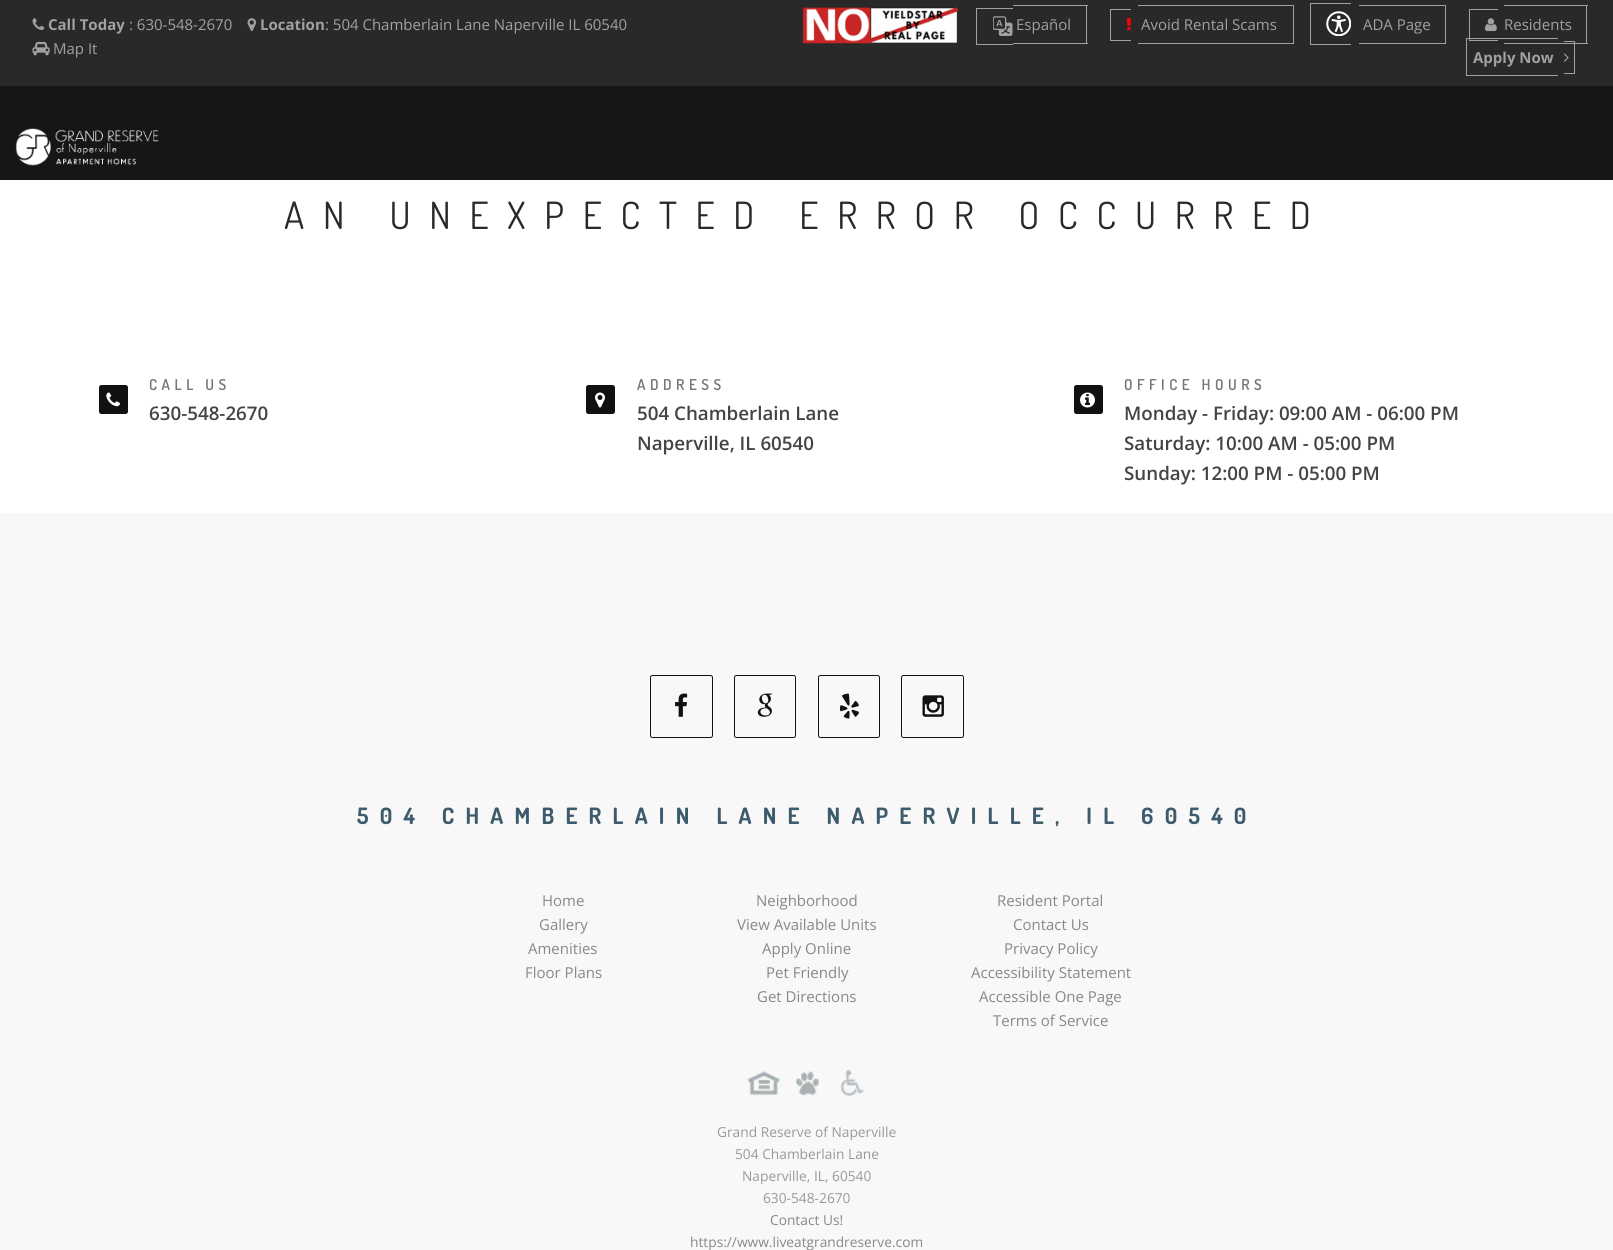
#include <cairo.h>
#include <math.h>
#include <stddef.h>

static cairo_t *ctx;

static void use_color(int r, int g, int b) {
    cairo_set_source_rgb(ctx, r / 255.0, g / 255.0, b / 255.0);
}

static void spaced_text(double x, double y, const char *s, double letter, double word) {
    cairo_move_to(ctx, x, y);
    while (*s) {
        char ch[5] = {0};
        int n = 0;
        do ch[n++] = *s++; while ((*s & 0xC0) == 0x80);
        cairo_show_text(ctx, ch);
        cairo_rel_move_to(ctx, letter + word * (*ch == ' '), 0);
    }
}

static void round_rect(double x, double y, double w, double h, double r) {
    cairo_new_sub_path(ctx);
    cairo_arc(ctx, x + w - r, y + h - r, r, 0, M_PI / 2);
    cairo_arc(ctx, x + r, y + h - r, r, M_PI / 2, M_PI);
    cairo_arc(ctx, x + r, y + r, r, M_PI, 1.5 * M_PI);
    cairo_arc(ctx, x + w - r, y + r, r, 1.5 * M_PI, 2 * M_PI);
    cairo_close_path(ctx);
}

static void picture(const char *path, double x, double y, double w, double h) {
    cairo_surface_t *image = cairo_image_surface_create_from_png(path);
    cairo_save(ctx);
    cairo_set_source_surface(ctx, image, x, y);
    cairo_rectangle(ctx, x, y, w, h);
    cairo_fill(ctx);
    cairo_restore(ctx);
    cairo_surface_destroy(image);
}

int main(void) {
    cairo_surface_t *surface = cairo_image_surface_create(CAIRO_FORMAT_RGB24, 1613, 1250);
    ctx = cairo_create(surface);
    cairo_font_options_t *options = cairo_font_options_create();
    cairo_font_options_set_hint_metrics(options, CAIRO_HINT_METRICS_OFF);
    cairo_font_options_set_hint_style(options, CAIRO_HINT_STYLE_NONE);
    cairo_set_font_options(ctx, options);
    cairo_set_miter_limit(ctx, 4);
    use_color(255, 255, 255);
    cairo_paint(ctx);
    use_color(41, 41, 41);
    cairo_rectangle(ctx, 0, 0, 1613, 86);
    cairo_fill(ctx);
    picture("img1.png", 32, 18, 13, 12);
    cairo_select_font_face(ctx, "Open Sans", CAIRO_FONT_SLANT_NORMAL, CAIRO_FONT_WEIGHT_BOLD);
    cairo_set_font_size(ctx, 15);
    use_color(161, 161, 161);
    cairo_move_to(ctx, 48, 30);
    cairo_show_text(ctx, "Call Today");
    cairo_select_font_face(ctx, "Open Sans", CAIRO_FONT_SLANT_NORMAL, CAIRO_FONT_WEIGHT_NORMAL);
    cairo_move_to(ctx, 129, 30);
    cairo_show_text(ctx, ": 630-548-2670");
    picture("img2.png", 247, 18, 10, 13);
    cairo_select_font_face(ctx, "Open Sans", CAIRO_FONT_SLANT_NORMAL, CAIRO_FONT_WEIGHT_BOLD);
    cairo_move_to(ctx, 260, 30);
    cairo_show_text(ctx, "Location");
    cairo_select_font_face(ctx, "Open Sans", CAIRO_FONT_SLANT_NORMAL, CAIRO_FONT_WEIGHT_NORMAL);
    cairo_move_to(ctx, 325, 30);
    cairo_show_text(ctx, ": 504 Chamberlain Lane Naperville IL 60540");
    picture("img3.png", 32, 41, 18, 15);
    cairo_move_to(ctx, 53, 54);
    cairo_show_text(ctx, "Map It");
    picture("img4.png", 802, 7, 157, 37);
    picture("img5.png", 993, 16, 20, 20);
    cairo_move_to(ctx, 1016, 30);
    cairo_show_text(ctx, "Español");
    cairo_rectangle(ctx, 976, 8, 37, 1);
    cairo_fill(ctx);
    cairo_rectangle(ctx, 976, 44, 37, 1);
    cairo_fill(ctx);
    cairo_rectangle(ctx, 976, 8, 1, 37);
    cairo_fill(ctx);
    cairo_rectangle(ctx, 1013, 5, 75, 1);
    cairo_fill(ctx);
    cairo_rectangle(ctx, 1013, 43, 18, 1);
    cairo_fill(ctx);
    cairo_rectangle(ctx, 1086, 5, 1, 39);
    cairo_fill(ctx);
    cairo_rectangle(ctx, 1031, 43, 57, 1);
    cairo_fill(ctx);
    cairo_rectangle(ctx, 1110, 9, 21, 1);
    cairo_fill(ctx);
    cairo_rectangle(ctx, 1110, 40, 21, 1);
    cairo_fill(ctx);
    cairo_rectangle(ctx, 1110, 9, 1, 32);
    cairo_fill(ctx);
    cairo_rectangle(ctx, 1138, 5, 156, 1);
    cairo_fill(ctx);
    cairo_rectangle(ctx, 1293, 5, 1, 39);
    cairo_fill(ctx);
    cairo_rectangle(ctx, 1138, 43, 156, 1);
    cairo_fill(ctx);
    picture("img6.png", 1127, 18, 4, 12);
    cairo_move_to(ctx, 1141, 30);
    cairo_show_text(ctx, "Avoid Rental Scams");
    picture("img7.png", 1326, 11, 25, 25);
    cairo_move_to(ctx, 1363, 30);
    cairo_show_text(ctx, "ADA Page");
    cairo_rectangle(ctx, 1310, 3, 41, 1);
    cairo_fill(ctx);
    cairo_rectangle(ctx, 1310, 44, 41, 1);
    cairo_fill(ctx);
    cairo_rectangle(ctx, 1310, 3, 1, 42);
    cairo_fill(ctx);
    cairo_rectangle(ctx, 1359, 5, 87, 1);
    cairo_fill(ctx);
    cairo_rectangle(ctx, 1445, 5, 1, 39);
    cairo_fill(ctx);
    cairo_rectangle(ctx, 1359, 43, 87, 1);
    cairo_fill(ctx);
    cairo_rectangle(ctx, 1469, 9, 29, 1);
    cairo_fill(ctx);
    cairo_rectangle(ctx, 1469, 40, 29, 1);
    cairo_fill(ctx);
    cairo_rectangle(ctx, 1469, 9, 1, 32);
    cairo_fill(ctx);
    cairo_rectangle(ctx, 1504, 5, 84, 1);
    cairo_fill(ctx);
    cairo_rectangle(ctx, 1586, 5, 1, 39);
    cairo_fill(ctx);
    cairo_rectangle(ctx, 1504, 43, 84, 1);
    cairo_fill(ctx);
    picture("img8.png", 1485, 18, 12, 14);
    cairo_move_to(ctx, 1504, 30);
    cairo_show_text(ctx, "Residents");
    cairo_rectangle(ctx, 1466, 38, 92, 1);
    cairo_fill(ctx);
    cairo_rectangle(ctx, 1466, 75, 92, 1);
    cairo_fill(ctx);
    cairo_rectangle(ctx, 1466, 38, 1, 38);
    cairo_fill(ctx);
    cairo_rectangle(ctx, 1564, 41, 11, 1);
    cairo_fill(ctx);
    cairo_rectangle(ctx, 1574, 41, 1, 33);
    cairo_fill(ctx);
    cairo_rectangle(ctx, 1564, 73, 11, 1);
    cairo_fill(ctx);
    cairo_select_font_face(ctx, "Open Sans", CAIRO_FONT_SLANT_NORMAL, CAIRO_FONT_WEIGHT_BOLD);
    cairo_move_to(ctx, 1473, 63);
    cairo_show_text(ctx, "Apply Now");
    picture("img9.png", 1563, 53, 6, 9);
    use_color(22, 22, 22);
    cairo_rectangle(ctx, 0, 86, 1613, 94);
    cairo_fill(ctx);
    picture("img10.png", 15, 128, 144, 38);
    cairo_select_font_face(ctx, "Dosis", CAIRO_FONT_SLANT_NORMAL, CAIRO_FONT_WEIGHT_NORMAL);
    cairo_set_font_size(ctx, 37.5);
    use_color(41, 41, 41);
    spaced_text(284, 229, "AN UNEXPECTED ERROR OCCURRED", 18.75, 0);
    use_color(17, 17, 17);
    round_rect(99, 385, 29, 29, 2.5);
    cairo_fill(ctx);
    picture("img11.png", 106, 392, 14, 15);
    cairo_select_font_face(ctx, "Dosis SemiBold", CAIRO_FONT_SLANT_NORMAL, CAIRO_FONT_WEIGHT_NORMAL);
    cairo_set_font_size(ctx, 15);
    use_color(119, 119, 119);
    spaced_text(149, 390, "CALL US", 4.5, 0);
    cairo_select_font_face(ctx, "Open Sans SemiBold", CAIRO_FONT_SLANT_NORMAL, CAIRO_FONT_WEIGHT_NORMAL);
    cairo_set_font_size(ctx, 18.75);
    use_color(68, 68, 68);
    cairo_move_to(ctx, 149, 420);
    cairo_show_text(ctx, "630-548-2670");
    use_color(17, 17, 17);
    round_rect(586, 385, 29, 29, 2.5);
    cairo_fill(ctx);
    picture("img12.png", 595, 392, 10, 16);
    cairo_select_font_face(ctx, "Dosis SemiBold", CAIRO_FONT_SLANT_NORMAL, CAIRO_FONT_WEIGHT_NORMAL);
    cairo_set_font_size(ctx, 15);
    use_color(119, 119, 119);
    spaced_text(637, 390, "ADDRESS", 4.5, 0);
    cairo_select_font_face(ctx, "Open Sans SemiBold", CAIRO_FONT_SLANT_NORMAL, CAIRO_FONT_WEIGHT_NORMAL);
    cairo_set_font_size(ctx, 18.75);
    use_color(68, 68, 68);
    cairo_move_to(ctx, 637, 420);
    cairo_show_text(ctx, "504 Chamberlain Lane");
    cairo_move_to(ctx, 637, 450);
    cairo_show_text(ctx, "Naperville, IL 60540");
    use_color(17, 17, 17);
    round_rect(1074, 385, 29, 29, 2.5);
    cairo_fill(ctx);
    picture("img13.png", 1080, 392, 15, 16);
    cairo_select_font_face(ctx, "Dosis SemiBold", CAIRO_FONT_SLANT_NORMAL, CAIRO_FONT_WEIGHT_NORMAL);
    cairo_set_font_size(ctx, 15);
    use_color(119, 119, 119);
    spaced_text(1124, 390, "OFFICE HOURS", 4.5, 0);
    cairo_select_font_face(ctx, "Open Sans SemiBold", CAIRO_FONT_SLANT_NORMAL, CAIRO_FONT_WEIGHT_NORMAL);
    cairo_set_font_size(ctx, 18.75);
    use_color(68, 68, 68);
    cairo_move_to(ctx, 1124, 420);
    cairo_show_text(ctx, "Monday - Friday: 09:00 AM - 06:00 PM");
    cairo_move_to(ctx, 1124, 450);
    cairo_show_text(ctx, "Saturday: 10:00 AM - 05:00 PM");
    cairo_move_to(ctx, 1124, 480);
    cairo_show_text(ctx, "Sunday: 12:00 PM - 05:00 PM");
    use_color(248, 248, 248);
    cairo_rectangle(ctx, 0, 513, 1613, 737);
    cairo_fill(ctx);
    round_rect(650.5, 675.5, 62, 62, 2);
    use_color(17, 17, 17);
    cairo_set_line_width(ctx, 1);
    cairo_stroke(ctx);
    picture("img14.png", 675, 693, 13, 24);
    round_rect(734.5, 675.5, 61, 62, 2);
    cairo_stroke(ctx);
    picture("img15.png", 757, 693, 16, 24);
    round_rect(818.5, 675.5, 61, 62, 2);
    cairo_stroke(ctx);
    picture("img16.png", 840, 693, 19, 26);
    round_rect(901.5, 675.5, 62, 62, 2);
    cairo_stroke(ctx);
    picture("img17.png", 922, 695, 22, 22);
    cairo_select_font_face(ctx, "Dosis", CAIRO_FONT_SLANT_NORMAL, CAIRO_FONT_WEIGHT_BOLD);
    cairo_set_font_size(ctx, 22.5);
    use_color(62, 91, 109);
    spaced_text(357, 824, "504 CHAMBERLAIN LANE NAPERVILLE, IL 60540", 11.25, 0);
    cairo_select_font_face(ctx, "Open Sans", CAIRO_FONT_SLANT_NORMAL, CAIRO_FONT_WEIGHT_NORMAL);
    cairo_set_font_size(ctx, 15);
    use_color(136, 136, 136);
    cairo_move_to(ctx, 542, 906);
    cairo_show_text(ctx, "Home");
    cairo_move_to(ctx, 539, 930);
    cairo_show_text(ctx, "Gallery");
    cairo_move_to(ctx, 528, 954);
    cairo_show_text(ctx, "Amenities");
    cairo_move_to(ctx, 525, 978);
    cairo_show_text(ctx, "Floor Plans");
    cairo_move_to(ctx, 756, 906);
    cairo_show_text(ctx, "Neighborhood");
    cairo_move_to(ctx, 737, 930);
    cairo_show_text(ctx, "View Available Units");
    cairo_move_to(ctx, 762, 954);
    cairo_show_text(ctx, "Apply Online");
    cairo_move_to(ctx, 766, 978);
    cairo_show_text(ctx, "Pet Friendly");
    cairo_move_to(ctx, 757, 1002);
    cairo_show_text(ctx, "Get Directions");
    cairo_move_to(ctx, 997, 906);
    cairo_show_text(ctx, "Resident Portal");
    cairo_move_to(ctx, 1013, 930);
    cairo_show_text(ctx, "Contact Us");
    cairo_move_to(ctx, 1004, 954);
    cairo_show_text(ctx, "Privacy Policy");
    cairo_move_to(ctx, 971, 978);
    cairo_show_text(ctx, "Accessibility Statement");
    cairo_move_to(ctx, 979, 1002);
    cairo_show_text(ctx, "Accessible One Page");
    cairo_move_to(ctx, 993, 1026);
    cairo_show_text(ctx, "Terms of Service");
    picture("img18.png", 747, 1071, 34, 25);
    picture("img19.png", 796, 1071, 23, 25);
    picture("img20.png", 840, 1070, 24, 27);
    cairo_set_font_size(ctx, 13.75);
    use_color(153, 153, 153);
    cairo_move_to(ctx, 717, 1137);
    cairo_show_text(ctx, "Grand Reserve of Naperville");
    cairo_move_to(ctx, 735, 1159);
    cairo_show_text(ctx, "504 Chamberlain Lane");
    cairo_move_to(ctx, 742, 1181);
    cairo_show_text(ctx, "Naperville, IL, 60540");
    cairo_move_to(ctx, 763, 1203);
    cairo_show_text(ctx, "630-548-2670");
    use_color(136, 136, 136);
    cairo_move_to(ctx, 770, 1225);
    cairo_show_text(ctx, "Contact Us!");
    cairo_move_to(ctx, 690, 1247);
    cairo_show_text(ctx, "https://www.liveatgrandreserve.com");
    cairo_surface_write_to_png(surface, "result.png");
    cairo_font_options_destroy(options);
    cairo_destroy(ctx);
    cairo_surface_destroy(surface);
    return 0;
}
